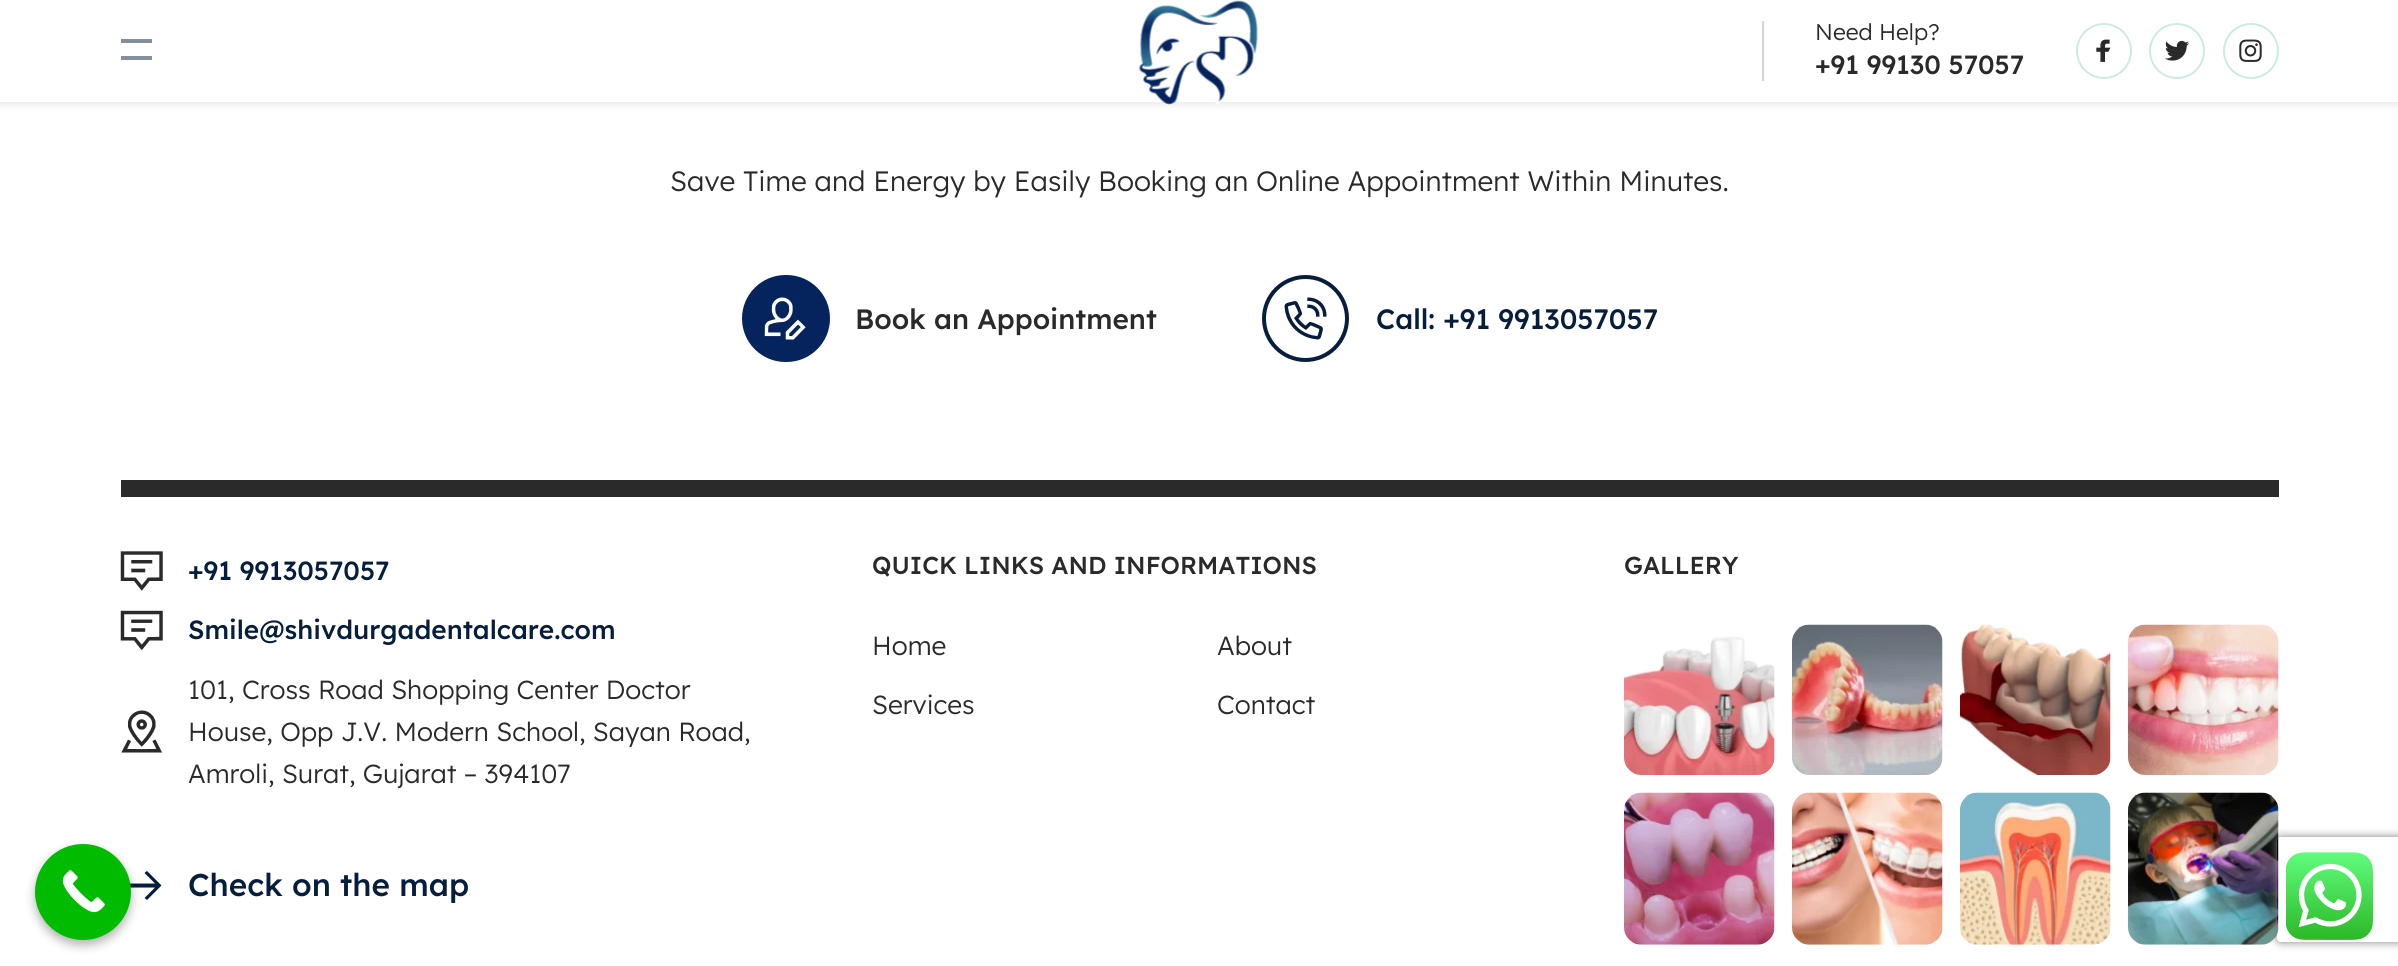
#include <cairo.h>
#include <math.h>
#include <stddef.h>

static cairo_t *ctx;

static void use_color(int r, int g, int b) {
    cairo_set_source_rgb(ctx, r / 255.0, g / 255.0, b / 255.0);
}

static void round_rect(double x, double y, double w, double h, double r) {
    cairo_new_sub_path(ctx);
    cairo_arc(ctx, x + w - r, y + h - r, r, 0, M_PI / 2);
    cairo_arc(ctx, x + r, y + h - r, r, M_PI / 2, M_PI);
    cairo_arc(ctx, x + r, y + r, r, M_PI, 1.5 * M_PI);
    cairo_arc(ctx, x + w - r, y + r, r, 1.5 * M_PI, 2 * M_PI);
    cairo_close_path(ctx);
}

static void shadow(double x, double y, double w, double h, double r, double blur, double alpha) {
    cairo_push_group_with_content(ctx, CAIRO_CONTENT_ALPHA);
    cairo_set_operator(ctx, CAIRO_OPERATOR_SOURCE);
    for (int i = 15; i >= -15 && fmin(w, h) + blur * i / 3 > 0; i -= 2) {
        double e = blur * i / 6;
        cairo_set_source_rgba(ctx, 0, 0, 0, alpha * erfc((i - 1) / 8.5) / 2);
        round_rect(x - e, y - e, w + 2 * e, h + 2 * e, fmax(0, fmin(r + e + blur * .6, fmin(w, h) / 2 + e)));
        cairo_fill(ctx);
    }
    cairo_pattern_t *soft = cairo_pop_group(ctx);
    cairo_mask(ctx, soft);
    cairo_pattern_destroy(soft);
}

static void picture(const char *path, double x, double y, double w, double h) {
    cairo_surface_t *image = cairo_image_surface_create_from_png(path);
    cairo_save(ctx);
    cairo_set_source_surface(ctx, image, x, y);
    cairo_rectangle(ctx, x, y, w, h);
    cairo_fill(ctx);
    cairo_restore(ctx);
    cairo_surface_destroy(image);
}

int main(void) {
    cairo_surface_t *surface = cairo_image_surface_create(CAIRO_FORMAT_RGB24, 2398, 966);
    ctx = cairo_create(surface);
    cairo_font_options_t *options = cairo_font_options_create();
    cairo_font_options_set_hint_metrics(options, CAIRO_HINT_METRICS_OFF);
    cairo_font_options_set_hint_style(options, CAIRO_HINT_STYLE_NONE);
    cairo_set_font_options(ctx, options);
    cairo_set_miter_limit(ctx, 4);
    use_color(255, 255, 255);
    cairo_paint(ctx);
    use_color(6, 30, 59);
    cairo_new_path(ctx);
    cairo_move_to(ctx, 145.5, 872);
    cairo_line_to(ctx, 144.5, 873);
    cairo_line_to(ctx, 155, 883.5);
    cairo_line_to(ctx, 124, 883.5);
    cairo_line_to(ctx, 124, 887.5);
    cairo_line_to(ctx, 155, 887.5);
    cairo_line_to(ctx, 144.5, 898);
    cairo_line_to(ctx, 147, 900);
    cairo_line_to(ctx, 161.5, 885.5);
    cairo_line_to(ctx, 147, 871);
    cairo_close_path(ctx);
    cairo_fill(ctx);
    use_color(0, 0, 0);
    shadow(35, 849, 96, 96, 48, 5, 0.3);
    use_color(0, 187, 0);
    cairo_arc(ctx, 83, 892, 48, 0, 2 * M_PI);
    cairo_fill(ctx);
    picture("img1.png", 62, 870, 43, 43);
    use_color(42, 42, 42);
    shadow(0, 4, 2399, 101, 0, 3.5, 0.1);
    use_color(255, 255, 255);
    cairo_rectangle(ctx, 0, 0, 2398, 102);
    cairo_fill(ctx);
    use_color(131, 143, 157);
    cairo_rectangle(ctx, 121, 39, 31, 4);
    cairo_fill(ctx);
    cairo_rectangle(ctx, 121, 56, 31, 4);
    cairo_fill(ctx);
    picture("img2.png", 1138, 0, 120, 105);
    use_color(212, 212, 212);
    cairo_rectangle(ctx, 1762, 21, 2, 60);
    cairo_fill(ctx);
    cairo_select_font_face(ctx, "Lexend Light", CAIRO_FONT_SLANT_NORMAL, CAIRO_FONT_WEIGHT_NORMAL);
    cairo_set_font_size(ctx, 22.75);
    use_color(42, 42, 42);
    cairo_move_to(ctx, 1815, 40);
    cairo_show_text(ctx, "Need Help?");
    cairo_select_font_face(ctx, "Lexend Medium", CAIRO_FONT_SLANT_NORMAL, CAIRO_FONT_WEIGHT_NORMAL);
    cairo_set_font_size(ctx, 26.25);
    cairo_move_to(ctx, 1815, 74);
    cairo_show_text(ctx, "+91 99130 57057");
    cairo_new_path(ctx);
    cairo_arc(ctx, 2104, 51, 27, 0, 2 * M_PI);
    use_color(204, 235, 225);
    cairo_stroke(ctx);
    picture("img3.png", 2096, 39, 15, 23);
    cairo_arc(ctx, 2177, 51, 27, 0, 2 * M_PI);
    cairo_stroke(ctx);
    picture("img4.png", 2165, 40, 25, 21);
    cairo_arc(ctx, 2251, 51, 27, 0, 2 * M_PI);
    cairo_stroke(ctx);
    picture("img5.png", 2239, 39, 23, 23);
    cairo_select_font_face(ctx, "Lexend Light", CAIRO_FONT_SLANT_NORMAL, CAIRO_FONT_WEIGHT_NORMAL);
    cairo_set_font_size(ctx, 28);
    use_color(42, 42, 42);
    cairo_move_to(ctx, 670, 191);
    cairo_show_text(ctx, "Save Time and Energy by Easily Booking an Online Appointment Within Minutes.");
    use_color(5, 36, 93);
    round_rect(742, 275, 88, 87, 43.5);
    cairo_fill(ctx);
    picture("img6.png", 764, 297, 42, 43);
    cairo_select_font_face(ctx, "Lexend Medium", CAIRO_FONT_SLANT_NORMAL, CAIRO_FONT_WEIGHT_NORMAL);
    use_color(42, 42, 42);
    cairo_move_to(ctx, 855, 329);
    cairo_show_text(ctx, "Book an Appointment");
    cairo_new_path(ctx);
    cairo_arc(ctx, 1305.5, 318.5, 41.5, 0, 2 * M_PI);
    use_color(6, 30, 59);
    cairo_set_line_width(ctx, 4);
    cairo_stroke(ctx);
    picture("img7.png", 1284, 297, 43, 43);
    cairo_move_to(ctx, 1376, 329);
    cairo_show_text(ctx, "Call: +91 9913057057");
    use_color(42, 42, 42);
    cairo_rectangle(ctx, 121, 480, 2158, 17);
    cairo_fill(ctx);
    picture("img8.png", 120, 551, 43, 40);
    cairo_set_font_size(ctx, 26.25);
    use_color(6, 30, 59);
    cairo_move_to(ctx, 188, 580);
    cairo_show_text(ctx, "+91 9913057057");
    picture("img9.png", 120, 610, 43, 41);
    cairo_move_to(ctx, 188, 639);
    cairo_show_text(ctx, "Smile@shivdurgadentalcare.com");
    cairo_select_font_face(ctx, "Lexend Light", CAIRO_FONT_SLANT_NORMAL, CAIRO_FONT_WEIGHT_NORMAL);
    use_color(42, 42, 42);
    cairo_move_to(ctx, 188, 699);
    cairo_show_text(ctx, "101, Cross Road Shopping Center Doctor");
    picture("img10.png", 121, 710, 41, 43);
    cairo_move_to(ctx, 188, 741);
    cairo_show_text(ctx, "House, Opp J.V. Modern School, Sayan Road,");
    cairo_move_to(ctx, 188, 783);
    cairo_show_text(ctx, "Amroli, Surat, Gujarat – 394107");
    cairo_select_font_face(ctx, "Lexend Medium", CAIRO_FONT_SLANT_NORMAL, CAIRO_FONT_WEIGHT_NORMAL);
    cairo_set_font_size(ctx, 31.5);
    use_color(6, 30, 59);
    cairo_move_to(ctx, 188, 896);
    cairo_show_text(ctx, "Check on the map");
    cairo_set_font_size(ctx, 24.5);
    use_color(42, 42, 42);
    cairo_move_to(ctx, 872, 574);
    cairo_show_text(ctx, "QUICK LINKS AND INFORMATIONS");
    cairo_select_font_face(ctx, "Lexend Light", CAIRO_FONT_SLANT_NORMAL, CAIRO_FONT_WEIGHT_NORMAL);
    cairo_set_font_size(ctx, 26.25);
    cairo_move_to(ctx, 872, 655);
    cairo_show_text(ctx, "Home");
    cairo_move_to(ctx, 1217, 655);
    cairo_show_text(ctx, "About");
    cairo_move_to(ctx, 872, 714);
    cairo_show_text(ctx, "Services");
    cairo_move_to(ctx, 1217, 714);
    cairo_show_text(ctx, "Contact");
    cairo_select_font_face(ctx, "Lexend Medium", CAIRO_FONT_SLANT_NORMAL, CAIRO_FONT_WEIGHT_NORMAL);
    cairo_set_font_size(ctx, 24.5);
    cairo_move_to(ctx, 1624, 574);
    cairo_show_text(ctx, "GALLERY");
    picture("img11.png", 1624, 636, 151, 139);
    picture("img12.png", 1792, 624, 151, 151);
    picture("img13.png", 1960, 624, 151, 151);
    picture("img14.png", 2128, 624, 151, 151);
    picture("img15.png", 1624, 792, 151, 153);
    picture("img16.png", 1792, 792, 151, 153);
    picture("img17.png", 1960, 792, 151, 153);
    picture("img18.png", 2128, 792, 151, 153);
    cairo_save(ctx);
    cairo_set_fill_rule(ctx, CAIRO_FILL_RULE_EVEN_ODD);
    cairo_new_path(ctx);
    cairo_move_to(ctx, 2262, 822);
    cairo_line_to(ctx, 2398, 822);
    cairo_line_to(ctx, 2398, 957);
    cairo_line_to(ctx, 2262, 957);
    cairo_close_path(ctx);
    cairo_move_to(ctx, 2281, 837);
    cairo_line_to(ctx, 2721, 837);
    cairo_curve_to(ctx, 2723, 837, 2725, 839, 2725, 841);
    cairo_line_to(ctx, 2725, 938);
    cairo_curve_to(ctx, 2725, 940, 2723, 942, 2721, 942);
    cairo_line_to(ctx, 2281, 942);
    cairo_curve_to(ctx, 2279, 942, 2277, 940, 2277, 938);
    cairo_line_to(ctx, 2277, 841);
    cairo_curve_to(ctx, 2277, 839, 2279, 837, 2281, 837);
    cairo_close_path(ctx);
    cairo_clip(ctx);
    use_color(128, 128, 128);
    shadow(2277, 837, 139, 105, 4, 4.5, 1);
    cairo_restore(ctx);
    picture("img19.png", 2286, 852, 87, 88);
    cairo_surface_write_to_png(surface, "result.png");
    cairo_font_options_destroy(options);
    cairo_destroy(ctx);
    cairo_surface_destroy(surface);
    return 0;
}
